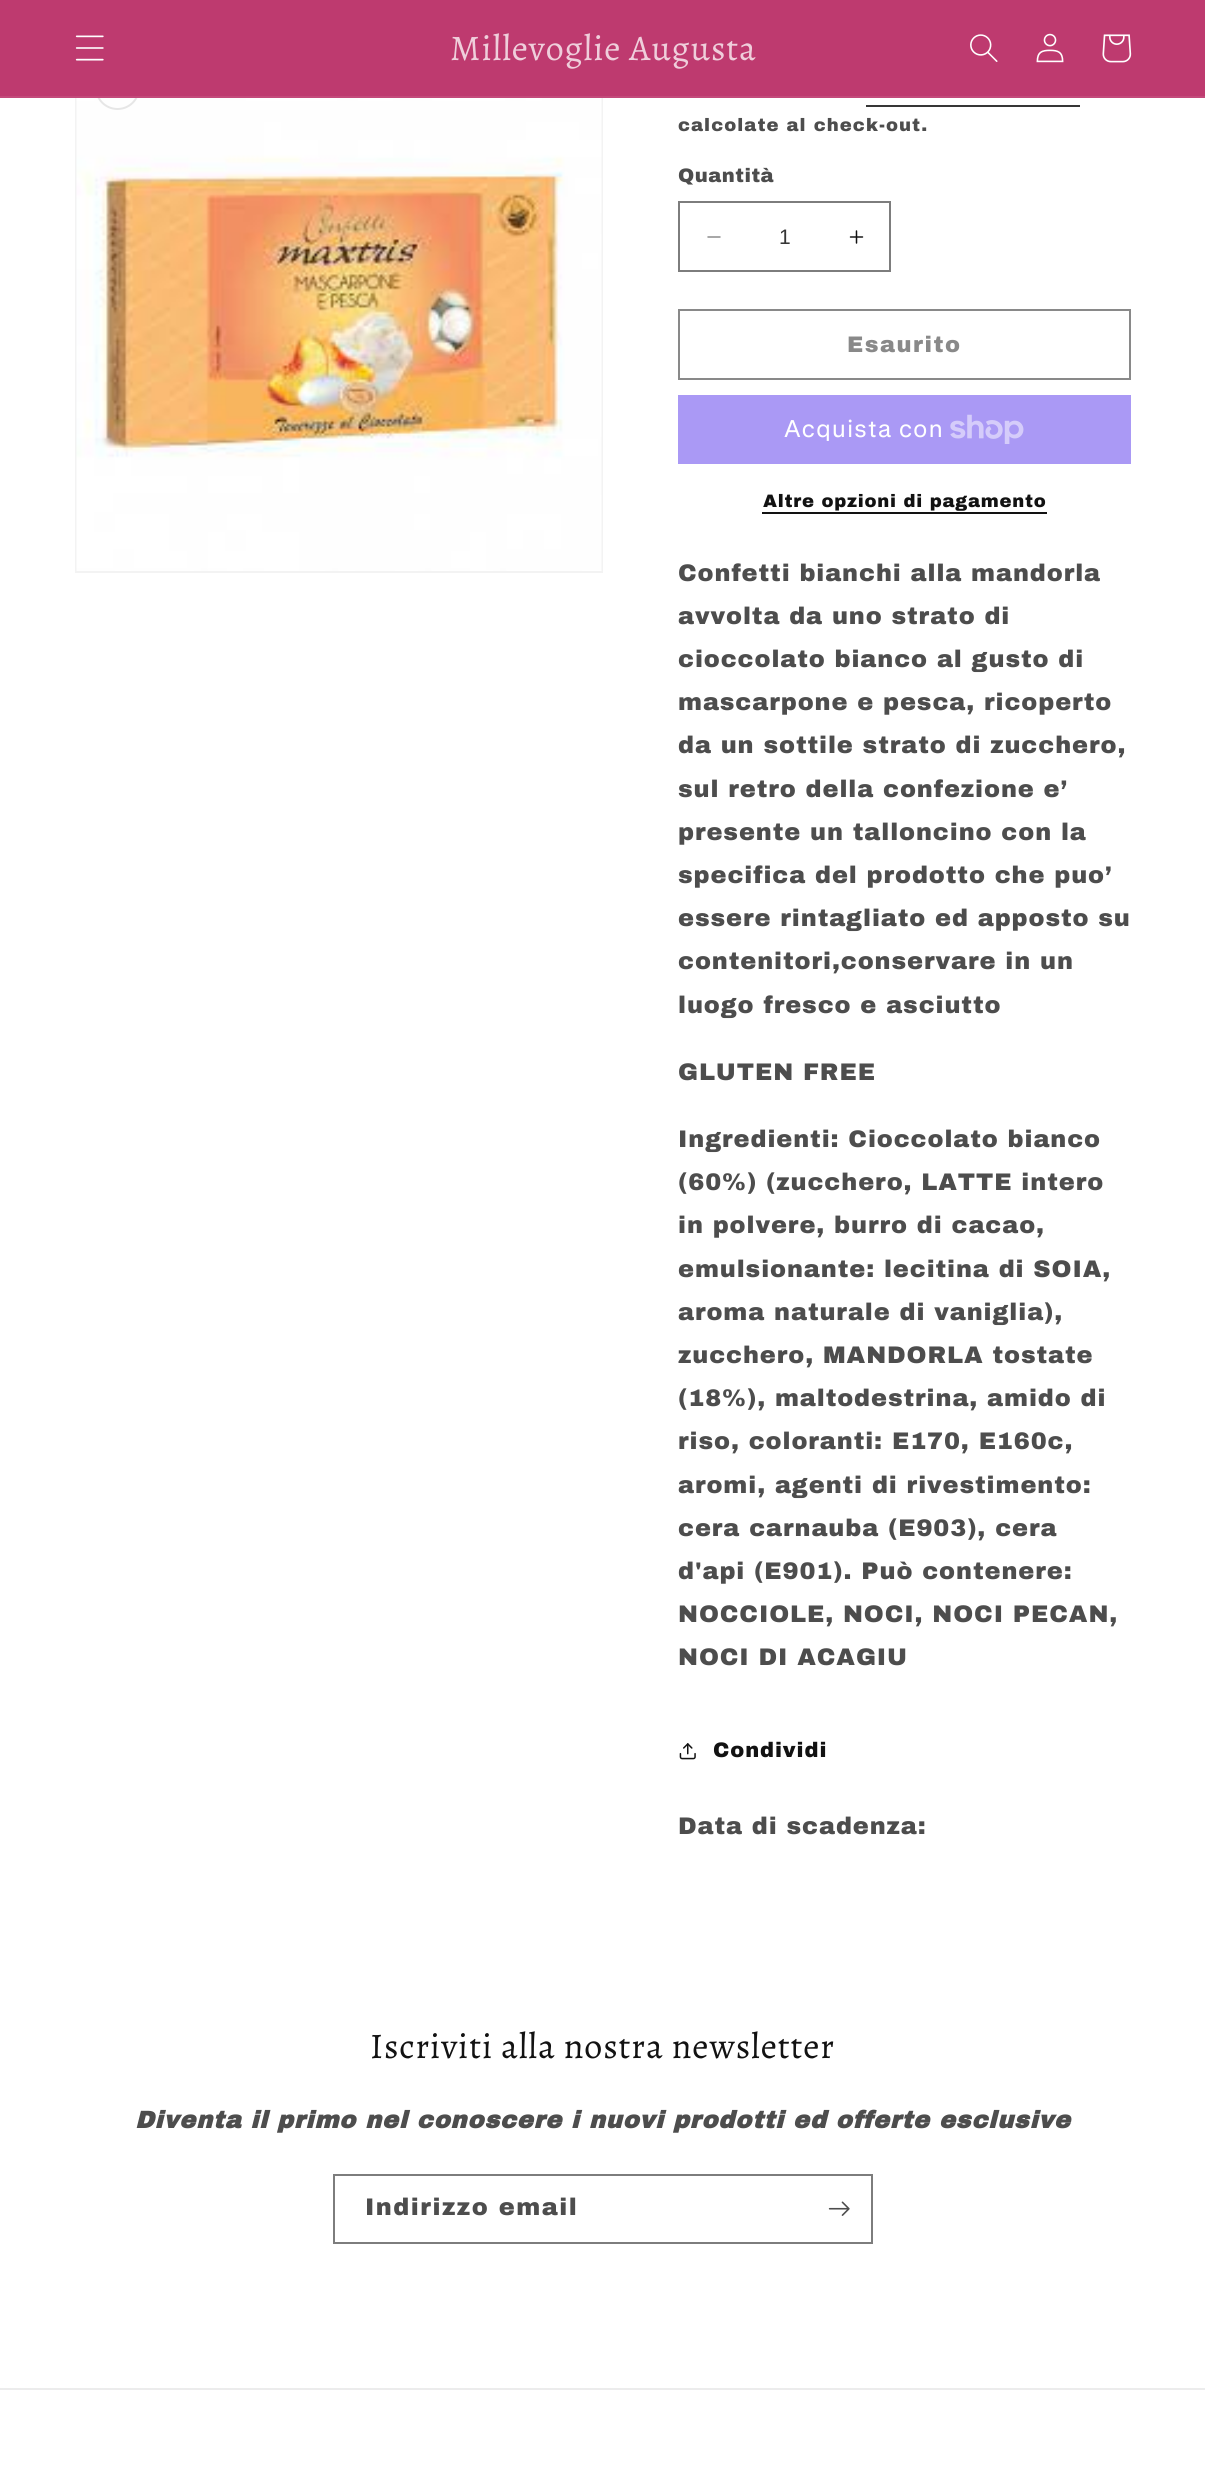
#include <cairo.h>
#include <math.h>
#include <stddef.h>

static cairo_t *ctx;

static void use_color(int r, int g, int b) {
    cairo_set_source_rgb(ctx, r / 255.0, g / 255.0, b / 255.0);
}

static void spaced_text(double x, double y, const char *s, double letter, double word) {
    cairo_move_to(ctx, x, y);
    while (*s) {
        char ch[5] = {0};
        int n = 0;
        do ch[n++] = *s++; while ((*s & 0xC0) == 0x80);
        cairo_show_text(ctx, ch);
        cairo_rel_move_to(ctx, letter + word * (*ch == ' '), 0);
    }
}

static void picture(const char *path, double x, double y, double w, double h) {
    cairo_surface_t *image = cairo_image_surface_create_from_png(path);
    cairo_save(ctx);
    cairo_set_source_surface(ctx, image, x, y);
    cairo_rectangle(ctx, x, y, w, h);
    cairo_fill(ctx);
    cairo_restore(ctx);
    cairo_surface_destroy(image);
}

int main(void) {
    cairo_surface_t *surface = cairo_image_surface_create(CAIRO_FORMAT_RGB24, 1205, 2470);
    ctx = cairo_create(surface);
    cairo_font_options_t *options = cairo_font_options_create();
    cairo_font_options_set_hint_metrics(options, CAIRO_HINT_METRICS_OFF);
    cairo_font_options_set_hint_style(options, CAIRO_HINT_STYLE_NONE);
    cairo_set_font_options(ctx, options);
    cairo_set_miter_limit(ctx, 4);
    use_color(255, 255, 255);
    cairo_paint(ctx);
    cairo_rectangle(ctx, 76, 46, 526, 526);
    use_color(243, 243, 243);
    cairo_stroke(ctx);
    picture("img5.png", 76, 98, 526, 473);
    cairo_arc(ctx, 117.5, 87.5, 21.5, 0, 2 * M_PI);
    use_color(230, 230, 230);
    cairo_stroke(ctx);
    use_color(190, 58, 111);
    cairo_rectangle(ctx, 0, 0, 1205, 96);
    cairo_fill(ctx);
    use_color(195, 74, 123);
    cairo_rectangle(ctx, 0, 96, 1205, 2);
    cairo_fill(ctx);
    picture("img1.png", 75, 35, 29, 26);
    cairo_select_font_face(ctx, "Alegreya", CAIRO_FONT_SLANT_NORMAL, CAIRO_FONT_WEIGHT_NORMAL);
    cairo_set_font_size(ctx, 36);
    use_color(239, 206, 219);
    spaced_text(450, 60, "Millevoglie Augusta", 0.9, 0);
    picture("img2.png", 970, 34, 28, 28);
    picture("img3.png", 1036, 33, 28, 30);
    picture("img4.png", 1102, 34, 30, 29);
    use_color(54, 54, 54);
    cairo_rectangle(ctx, 866, 105, 214, 2);
    cairo_fill(ctx);
    cairo_select_font_face(ctx, "Archivo Black", CAIRO_FONT_SLANT_NORMAL, CAIRO_FONT_WEIGHT_NORMAL);
    cairo_set_font_size(ctx, 18);
    use_color(77, 77, 77);
    spaced_text(678, 131, "calcolate al check-out.", 1.05, 0);
    cairo_set_font_size(ctx, 19.5);
    spaced_text(678, 182, "Quantità", 0.5, 0);
    picture("img6.png", 707, 236, 14, 2);
    picture("img7.png", 849, 230, 15, 14);
    cairo_rectangle(ctx, 679, 202, 211, 69);
    use_color(125, 125, 125);
    cairo_stroke(ctx);
    cairo_select_font_face(ctx, "Liberation Sans", CAIRO_FONT_SLANT_NORMAL, CAIRO_FONT_WEIGHT_NORMAL);
    cairo_set_font_size(ctx, 21);
    use_color(54, 54, 54);
    cairo_move_to(ctx, 779, 244);
    cairo_show_text(ctx, "1");
    cairo_rectangle(ctx, 679, 310, 451, 69);
    use_color(137, 137, 137);
    cairo_stroke(ctx);
    cairo_select_font_face(ctx, "Archivo Black", CAIRO_FONT_SLANT_NORMAL, CAIRO_FONT_WEIGHT_NORMAL);
    cairo_set_font_size(ctx, 22.5);
    spaced_text(847, 352, "Esaurito", 1.5, 0);
    use_color(170, 153, 245);
    cairo_rectangle(ctx, 678, 395, 453, 69);
    cairo_fill(ctx);
    cairo_select_font_face(ctx, "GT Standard", CAIRO_FONT_SLANT_NORMAL, CAIRO_FONT_WEIGHT_NORMAL);
    cairo_set_font_size(ctx, 24);
    use_color(255, 255, 255);
    spaced_text(784, 437, "Acquista con", 0.9, 0);
    picture("img8.png", 950, 414, 74, 30);
    cairo_select_font_face(ctx, "Archivo Black", CAIRO_FONT_SLANT_NORMAL, CAIRO_FONT_WEIGHT_NORMAL);
    cairo_set_font_size(ctx, 18);
    use_color(18, 18, 18);
    spaced_text(763, 507, "Altre opzioni di pagamento", 0.75, 0);
    cairo_rectangle(ctx, 762, 512, 285, 2);
    cairo_fill(ctx);
    cairo_set_font_size(ctx, 24);
    use_color(77, 77, 77);
    spaced_text(678, 581, "Confetti bianchi alla mandorla", 0.9, 0);
    spaced_text(678, 624, "avvolta da uno strato di", 0.9, 0);
    spaced_text(678, 667, "cioccolato bianco al gusto di", 0.9, 0);
    spaced_text(678, 710, "mascarpone e pesca, ricoperto", 0.9, 0);
    spaced_text(678, 753, "da un sottile strato di zucchero,", 0.9, 0);
    spaced_text(678, 797, "sul retro della confezione e’", 0.9, 0);
    spaced_text(678, 840, "presente un talloncino con la", 0.9, 0);
    spaced_text(678, 883, "specifica del prodotto che puo’", 0.9, 0);
    spaced_text(678, 926, "essere rintagliato ed apposto su", 0.9, 0);
    spaced_text(678, 969, "contenitori,conservare in un", 0.9, 0);
    spaced_text(678, 1013, "luogo fresco e asciutto", 0.9, 0);
    spaced_text(678, 1080, "GLUTEN FREE", 0.9, 0);
    spaced_text(678, 1147, "Ingredienti: Cioccolato bianco", 0.9, 0);
    spaced_text(678, 1190, "(60%) (zucchero, LATTE intero", 0.9, 0);
    spaced_text(678, 1233, "in polvere, burro di cacao,", 0.9, 0);
    spaced_text(678, 1277, "emulsionante: lecitina di SOIA,", 0.9, 0);
    spaced_text(678, 1320, "aroma naturale di vaniglia),", 0.9, 0);
    spaced_text(678, 1363, "zucchero, MANDORLA tostate", 0.9, 0);
    spaced_text(678, 1406, "(18%), maltodestrina, amido di", 0.9, 0);
    spaced_text(678, 1449, "riso, coloranti: E170, E160c,", 0.9, 0);
    spaced_text(678, 1493, "aromi, agenti di rivestimento:", 0.9, 0);
    spaced_text(678, 1536, "cera carnauba (E903), cera", 0.9, 0);
    spaced_text(678, 1579, "d'api (E901). Può contenere:", 0.9, 0);
    spaced_text(678, 1622, "NOCCIOLE, NOCI, NOCI PECAN,", 0.9, 0);
    spaced_text(678, 1665, "NOCI DI ACAGIU", 0.9, 0);
    picture("img9.png", 679, 1743, 17, 17);
    cairo_set_font_size(ctx, 21);
    use_color(18, 18, 18);
    spaced_text(713, 1757, "Condividi", 0.9, 0);
    cairo_set_font_size(ctx, 24);
    use_color(77, 77, 77);
    spaced_text(678, 1834, "Data di scadenza:", 0.9, 0);
    cairo_select_font_face(ctx, "Alegreya", CAIRO_FONT_SLANT_NORMAL, CAIRO_FONT_WEIGHT_NORMAL);
    cairo_set_font_size(ctx, 36);
    use_color(18, 18, 18);
    spaced_text(370, 2058, "Iscriviti alla nostra newsletter", 0.9, 0);
    cairo_select_font_face(ctx, "Archivo Black", CAIRO_FONT_SLANT_ITALIC, CAIRO_FONT_WEIGHT_BOLD);
    cairo_set_font_size(ctx, 24);
    use_color(77, 77, 77);
    spaced_text(135, 2128, "Diventa il primo nel conoscere i nuovi prodotti ed offerte esclusive", 0.9, 0);
    cairo_rectangle(ctx, 334, 2175, 538, 68);
    use_color(125, 125, 125);
    cairo_stroke(ctx);
    cairo_select_font_face(ctx, "Archivo Black", CAIRO_FONT_SLANT_NORMAL, CAIRO_FONT_WEIGHT_NORMAL);
    use_color(77, 77, 77);
    spaced_text(365, 2215, "Indirizzo email", 1.5, 0);
    picture("img10.png", 828, 2201, 22, 15);
    use_color(236, 236, 236);
    cairo_rectangle(ctx, 0, 2388, 1205, 2);
    cairo_fill(ctx);
    cairo_surface_write_to_png(surface, "result.png");
    cairo_font_options_destroy(options);
    cairo_destroy(ctx);
    cairo_surface_destroy(surface);
    return 0;
}
